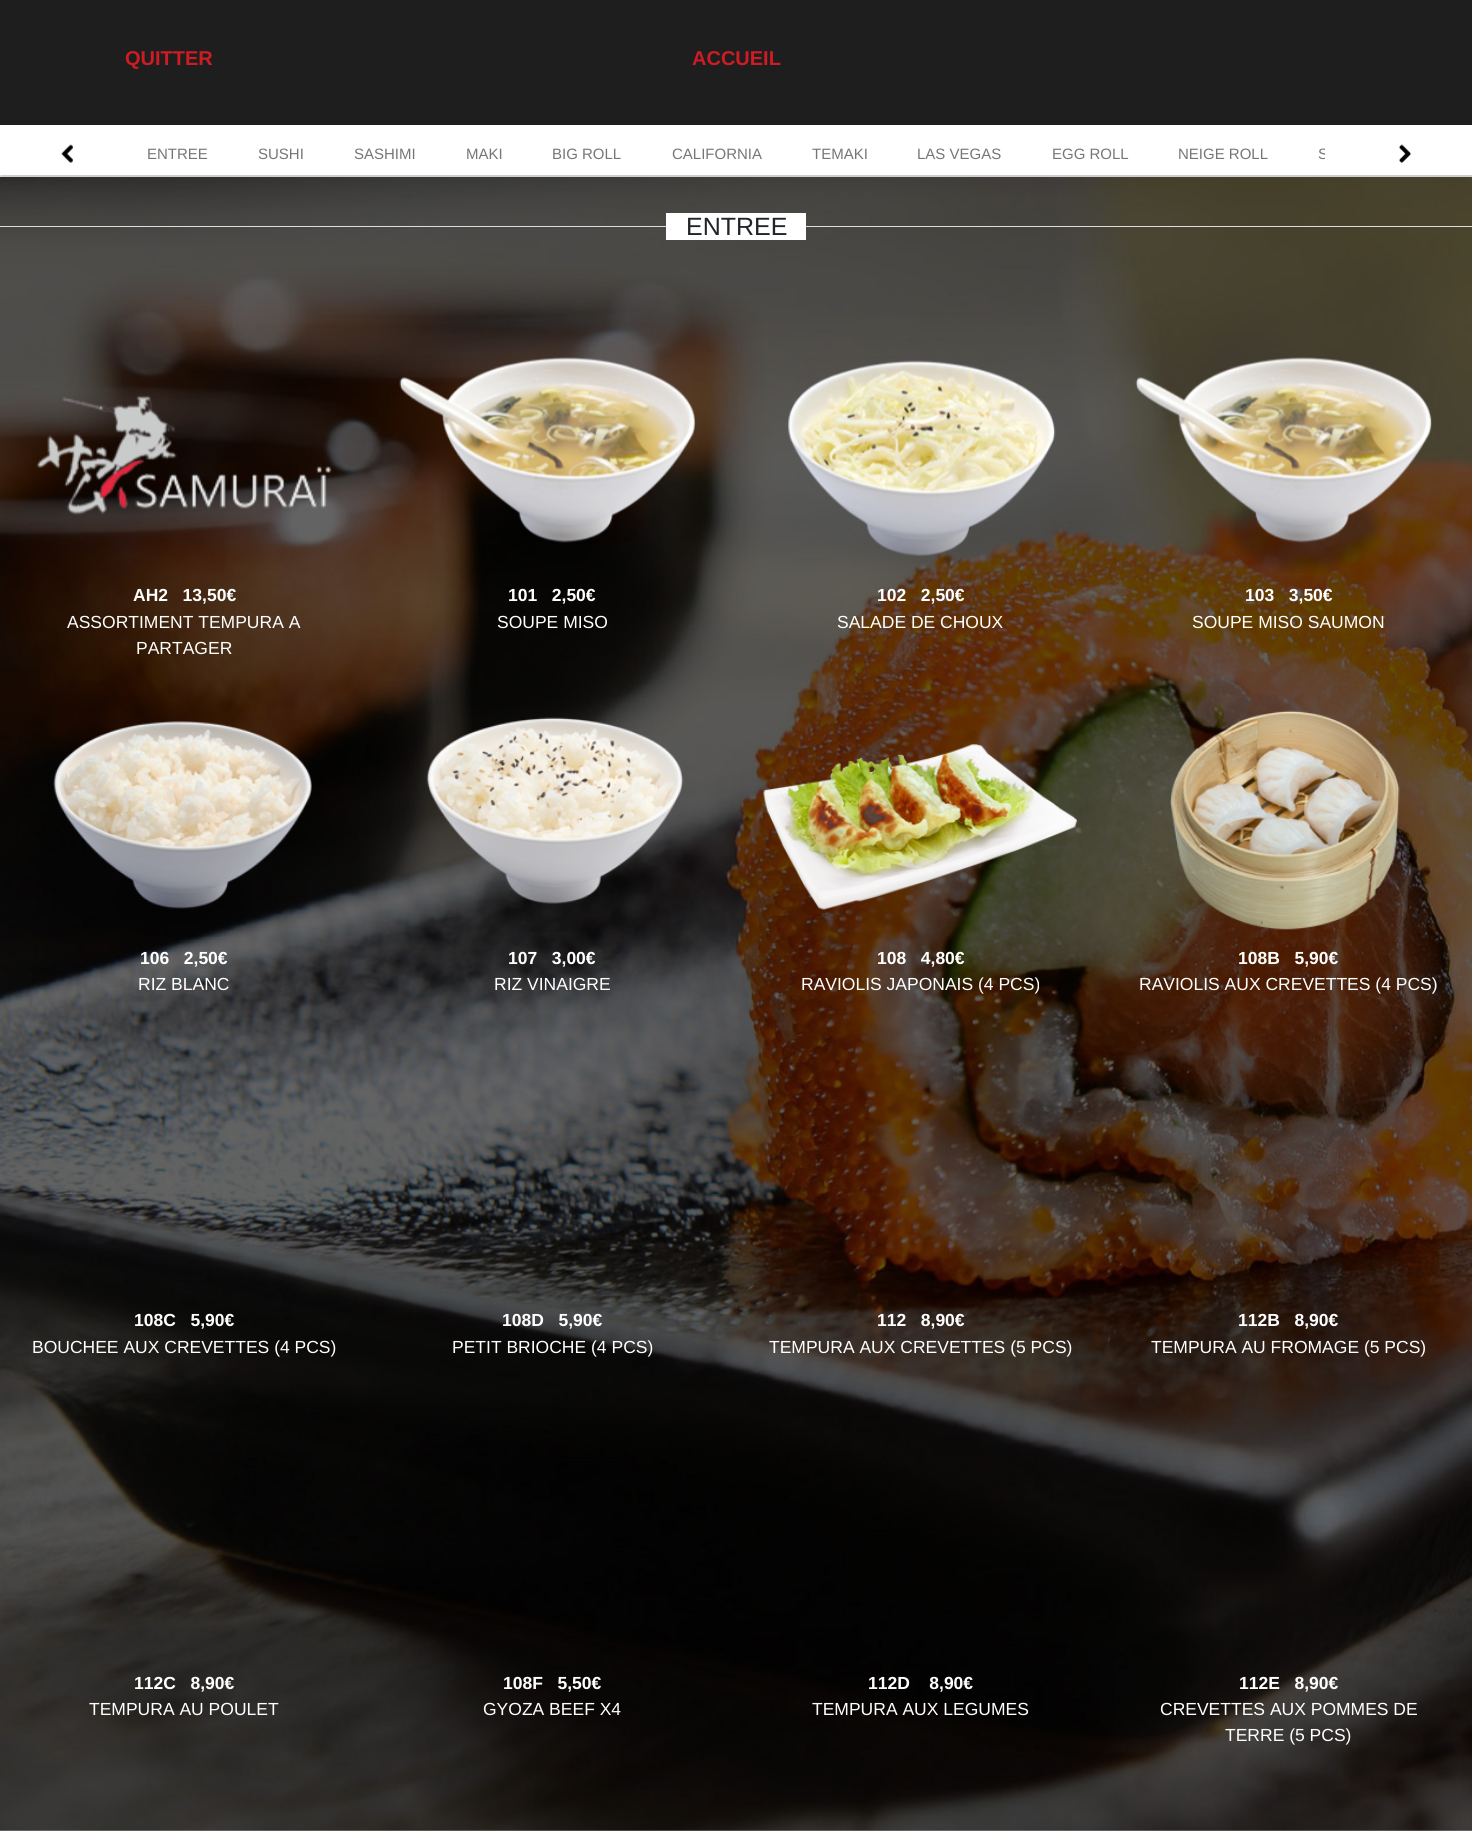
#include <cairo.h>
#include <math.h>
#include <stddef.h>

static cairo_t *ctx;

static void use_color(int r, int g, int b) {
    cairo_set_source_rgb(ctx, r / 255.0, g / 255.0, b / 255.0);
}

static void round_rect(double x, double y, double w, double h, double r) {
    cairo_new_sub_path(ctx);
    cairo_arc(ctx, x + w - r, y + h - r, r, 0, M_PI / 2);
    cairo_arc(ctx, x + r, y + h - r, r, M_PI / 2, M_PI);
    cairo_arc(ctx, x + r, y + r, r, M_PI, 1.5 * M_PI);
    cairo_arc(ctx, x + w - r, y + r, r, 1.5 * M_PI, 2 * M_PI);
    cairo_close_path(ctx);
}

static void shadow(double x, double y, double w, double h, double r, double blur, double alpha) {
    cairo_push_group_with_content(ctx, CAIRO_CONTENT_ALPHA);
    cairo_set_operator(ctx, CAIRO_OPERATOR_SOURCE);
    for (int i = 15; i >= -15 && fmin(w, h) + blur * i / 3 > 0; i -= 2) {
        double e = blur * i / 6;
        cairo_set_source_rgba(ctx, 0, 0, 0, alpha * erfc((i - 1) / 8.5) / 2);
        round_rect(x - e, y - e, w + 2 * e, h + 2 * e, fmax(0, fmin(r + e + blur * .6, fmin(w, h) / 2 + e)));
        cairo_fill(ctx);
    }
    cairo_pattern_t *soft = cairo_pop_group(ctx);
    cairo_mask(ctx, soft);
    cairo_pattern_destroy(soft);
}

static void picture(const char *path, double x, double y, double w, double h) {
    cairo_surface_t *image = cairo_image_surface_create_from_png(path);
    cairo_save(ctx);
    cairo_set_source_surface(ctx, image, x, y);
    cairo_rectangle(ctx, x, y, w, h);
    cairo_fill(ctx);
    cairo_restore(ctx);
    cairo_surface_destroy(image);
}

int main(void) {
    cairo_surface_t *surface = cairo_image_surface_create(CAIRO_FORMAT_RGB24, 1472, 1831);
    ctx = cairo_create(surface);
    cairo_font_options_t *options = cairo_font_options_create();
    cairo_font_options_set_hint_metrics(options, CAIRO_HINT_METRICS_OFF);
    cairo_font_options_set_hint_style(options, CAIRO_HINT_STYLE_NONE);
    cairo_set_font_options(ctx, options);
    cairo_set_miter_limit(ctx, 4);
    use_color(255, 255, 255);
    cairo_paint(ctx);
    use_color(30, 30, 30);
    cairo_rectangle(ctx, 0, 0, 1472, 125);
    cairo_fill(ctx);
    cairo_select_font_face(ctx, "Liberation Sans", CAIRO_FONT_SLANT_NORMAL, CAIRO_FONT_WEIGHT_BOLD);
    cairo_set_font_size(ctx, 20);
    use_color(205, 28, 36);
    cairo_move_to(ctx, 125, 65);
    cairo_show_text(ctx, "QUITTER");
    cairo_move_to(ctx, 692, 65);
    cairo_show_text(ctx, "ACCUEIL");
    cairo_save(ctx);
    cairo_rectangle(ctx, 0, 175, 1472, 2);
    cairo_clip(ctx);
    use_color(205, 205, 205);
    shadow(0, 140, 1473, 38, 0, 1, 1);
    cairo_restore(ctx);
    picture("img1.png", 61, 144, 12, 19);
    cairo_select_font_face(ctx, "Liberation Sans", CAIRO_FONT_SLANT_NORMAL, CAIRO_FONT_WEIGHT_NORMAL);
    cairo_set_font_size(ctx, 15);
    use_color(118, 118, 118);
    cairo_move_to(ctx, 147, 159);
    cairo_show_text(ctx, "ENTREE");
    cairo_move_to(ctx, 258, 159);
    cairo_show_text(ctx, "SUSHI");
    cairo_move_to(ctx, 354, 159);
    cairo_show_text(ctx, "SASHIMI");
    cairo_move_to(ctx, 466, 159);
    cairo_show_text(ctx, "MAKI");
    cairo_move_to(ctx, 552, 159);
    cairo_show_text(ctx, "BIG ROLL");
    cairo_move_to(ctx, 672, 159);
    cairo_show_text(ctx, "CALIFORNIA");
    cairo_move_to(ctx, 812, 159);
    cairo_show_text(ctx, "TEMAKI");
    cairo_move_to(ctx, 917, 159);
    cairo_show_text(ctx, "LAS VEGAS");
    cairo_move_to(ctx, 1052, 159);
    cairo_show_text(ctx, "EGG ROLL");
    cairo_move_to(ctx, 1178, 159);
    cairo_show_text(ctx, "NEIGE ROLL");
    cairo_save(ctx);
    cairo_rectangle(ctx, 148, 138, 1177, 37);
    cairo_clip(ctx);
    cairo_move_to(ctx, 1318, 159);
    cairo_show_text(ctx, "S");
    cairo_restore(ctx);
    picture("img2.png", 1399, 144, 12, 19);
    picture("img3.png", 0, 177, 1472, 1654);
    use_color(221, 221, 221);
    cairo_rectangle(ctx, 0, 226, 1472, 1);
    cairo_fill(ctx);
    use_color(255, 255, 255);
    cairo_rectangle(ctx, 666, 213, 140, 27);
    cairo_fill(ctx);
    cairo_set_font_size(ctx, 25);
    use_color(33, 37, 41);
    cairo_move_to(ctx, 686, 235);
    cairo_show_text(ctx, "ENTREE");
    picture("img4.png", 36, 395, 296, 120);
    cairo_select_font_face(ctx, "Liberation Sans", CAIRO_FONT_SLANT_NORMAL, CAIRO_FONT_WEIGHT_BOLD);
    cairo_set_font_size(ctx, 17.5);
    use_color(255, 255, 255);
    cairo_move_to(ctx, 133, 601);
    cairo_show_text(ctx, "AH2   13,50€");
    cairo_select_font_face(ctx, "Liberation Sans", CAIRO_FONT_SLANT_NORMAL, CAIRO_FONT_WEIGHT_NORMAL);
    cairo_move_to(ctx, 67, 628);
    cairo_show_text(ctx, "ASSORTIMENT TEMPURA A");
    cairo_move_to(ctx, 136, 654);
    cairo_show_text(ctx, "PARTAGER");
    picture("img5.png", 399, 357, 297, 186);
    cairo_select_font_face(ctx, "Liberation Sans", CAIRO_FONT_SLANT_NORMAL, CAIRO_FONT_WEIGHT_BOLD);
    cairo_move_to(ctx, 508, 601);
    cairo_show_text(ctx, "101   2,50€");
    cairo_select_font_face(ctx, "Liberation Sans", CAIRO_FONT_SLANT_NORMAL, CAIRO_FONT_WEIGHT_NORMAL);
    cairo_move_to(ctx, 497, 628);
    cairo_show_text(ctx, "SOUPE MISO");
    picture("img6.png", 787, 360, 269, 197);
    cairo_select_font_face(ctx, "Liberation Sans", CAIRO_FONT_SLANT_NORMAL, CAIRO_FONT_WEIGHT_BOLD);
    cairo_move_to(ctx, 877, 601);
    cairo_show_text(ctx, "102   2,50€");
    cairo_select_font_face(ctx, "Liberation Sans", CAIRO_FONT_SLANT_NORMAL, CAIRO_FONT_WEIGHT_NORMAL);
    cairo_move_to(ctx, 837, 628);
    cairo_show_text(ctx, "SALADE DE CHOUX");
    picture("img7.png", 1135, 357, 297, 216);
    cairo_select_font_face(ctx, "Liberation Sans", CAIRO_FONT_SLANT_NORMAL, CAIRO_FONT_WEIGHT_BOLD);
    cairo_move_to(ctx, 1245, 601);
    cairo_show_text(ctx, "103   3,50€");
    cairo_select_font_face(ctx, "Liberation Sans", CAIRO_FONT_SLANT_NORMAL, CAIRO_FONT_WEIGHT_NORMAL);
    cairo_move_to(ctx, 1192, 628);
    cairo_show_text(ctx, "SOUPE MISO SAUMON");
    picture("img8.png", 53, 721, 259, 216);
    cairo_select_font_face(ctx, "Liberation Sans", CAIRO_FONT_SLANT_NORMAL, CAIRO_FONT_WEIGHT_BOLD);
    cairo_move_to(ctx, 140, 964);
    cairo_show_text(ctx, "106   2,50€");
    cairo_select_font_face(ctx, "Liberation Sans", CAIRO_FONT_SLANT_NORMAL, CAIRO_FONT_WEIGHT_NORMAL);
    cairo_move_to(ctx, 138, 990);
    cairo_show_text(ctx, "RIZ BLANC");
    picture("img9.png", 426, 717, 258, 215);
    cairo_select_font_face(ctx, "Liberation Sans", CAIRO_FONT_SLANT_NORMAL, CAIRO_FONT_WEIGHT_BOLD);
    cairo_move_to(ctx, 508, 964);
    cairo_show_text(ctx, "107   3,00€");
    cairo_select_font_face(ctx, "Liberation Sans", CAIRO_FONT_SLANT_NORMAL, CAIRO_FONT_WEIGHT_NORMAL);
    cairo_move_to(ctx, 494, 990);
    cairo_show_text(ctx, "RIZ VINAIGRE");
    picture("img10.png", 763, 744, 315, 166);
    cairo_select_font_face(ctx, "Liberation Sans", CAIRO_FONT_SLANT_NORMAL, CAIRO_FONT_WEIGHT_BOLD);
    cairo_move_to(ctx, 877, 964);
    cairo_show_text(ctx, "108   4,80€");
    cairo_select_font_face(ctx, "Liberation Sans", CAIRO_FONT_SLANT_NORMAL, CAIRO_FONT_WEIGHT_NORMAL);
    cairo_move_to(ctx, 801, 990);
    cairo_show_text(ctx, "RAVIOLIS JAPONAIS (4 PCS)");
    picture("img11.png", 1170, 710, 230, 220);
    cairo_select_font_face(ctx, "Liberation Sans", CAIRO_FONT_SLANT_NORMAL, CAIRO_FONT_WEIGHT_BOLD);
    cairo_move_to(ctx, 1238, 964);
    cairo_show_text(ctx, "108B   5,90€");
    cairo_select_font_face(ctx, "Liberation Sans", CAIRO_FONT_SLANT_NORMAL, CAIRO_FONT_WEIGHT_NORMAL);
    cairo_move_to(ctx, 1139, 990);
    cairo_show_text(ctx, "RAVIOLIS AUX CREVETTES (4 PCS)");
    cairo_select_font_face(ctx, "Liberation Sans", CAIRO_FONT_SLANT_NORMAL, CAIRO_FONT_WEIGHT_BOLD);
    cairo_move_to(ctx, 134, 1326);
    cairo_show_text(ctx, "108C   5,90€");
    cairo_select_font_face(ctx, "Liberation Sans", CAIRO_FONT_SLANT_NORMAL, CAIRO_FONT_WEIGHT_NORMAL);
    cairo_move_to(ctx, 32, 1353);
    cairo_show_text(ctx, "BOUCHEE AUX CREVETTES (4 PCS)");
    cairo_select_font_face(ctx, "Liberation Sans", CAIRO_FONT_SLANT_NORMAL, CAIRO_FONT_WEIGHT_BOLD);
    cairo_move_to(ctx, 502, 1326);
    cairo_show_text(ctx, "108D   5,90€");
    cairo_select_font_face(ctx, "Liberation Sans", CAIRO_FONT_SLANT_NORMAL, CAIRO_FONT_WEIGHT_NORMAL);
    cairo_move_to(ctx, 452, 1353);
    cairo_show_text(ctx, "PETIT BRIOCHE (4 PCS)");
    cairo_select_font_face(ctx, "Liberation Sans", CAIRO_FONT_SLANT_NORMAL, CAIRO_FONT_WEIGHT_BOLD);
    cairo_move_to(ctx, 877, 1326);
    cairo_show_text(ctx, "112   8,90€");
    cairo_select_font_face(ctx, "Liberation Sans", CAIRO_FONT_SLANT_NORMAL, CAIRO_FONT_WEIGHT_NORMAL);
    cairo_move_to(ctx, 769, 1353);
    cairo_show_text(ctx, "TEMPURA AUX CREVETTES (5 PCS)");
    cairo_select_font_face(ctx, "Liberation Sans", CAIRO_FONT_SLANT_NORMAL, CAIRO_FONT_WEIGHT_BOLD);
    cairo_move_to(ctx, 1238, 1326);
    cairo_show_text(ctx, "112B   8,90€");
    cairo_select_font_face(ctx, "Liberation Sans", CAIRO_FONT_SLANT_NORMAL, CAIRO_FONT_WEIGHT_NORMAL);
    cairo_move_to(ctx, 1151, 1353);
    cairo_show_text(ctx, "TEMPURA AU FROMAGE (5 PCS)");
    cairo_select_font_face(ctx, "Liberation Sans", CAIRO_FONT_SLANT_NORMAL, CAIRO_FONT_WEIGHT_BOLD);
    cairo_move_to(ctx, 134, 1689);
    cairo_show_text(ctx, "112C   8,90€");
    cairo_select_font_face(ctx, "Liberation Sans", CAIRO_FONT_SLANT_NORMAL, CAIRO_FONT_WEIGHT_NORMAL);
    cairo_move_to(ctx, 89, 1715);
    cairo_show_text(ctx, "TEMPURA AU POULET");
    cairo_select_font_face(ctx, "Liberation Sans", CAIRO_FONT_SLANT_NORMAL, CAIRO_FONT_WEIGHT_BOLD);
    cairo_move_to(ctx, 503, 1689);
    cairo_show_text(ctx, "108F   5,50€");
    cairo_select_font_face(ctx, "Liberation Sans", CAIRO_FONT_SLANT_NORMAL, CAIRO_FONT_WEIGHT_NORMAL);
    cairo_move_to(ctx, 483, 1715);
    cairo_show_text(ctx, "GYOZA BEEF X4");
    cairo_select_font_face(ctx, "Liberation Sans", CAIRO_FONT_SLANT_NORMAL, CAIRO_FONT_WEIGHT_BOLD);
    cairo_move_to(ctx, 868, 1689);
    cairo_show_text(ctx, "112D    8,90€");
    cairo_select_font_face(ctx, "Liberation Sans", CAIRO_FONT_SLANT_NORMAL, CAIRO_FONT_WEIGHT_NORMAL);
    cairo_move_to(ctx, 812, 1715);
    cairo_show_text(ctx, "TEMPURA AUX LEGUMES");
    cairo_select_font_face(ctx, "Liberation Sans", CAIRO_FONT_SLANT_NORMAL, CAIRO_FONT_WEIGHT_BOLD);
    cairo_move_to(ctx, 1239, 1689);
    cairo_show_text(ctx, "112E   8,90€");
    cairo_select_font_face(ctx, "Liberation Sans", CAIRO_FONT_SLANT_NORMAL, CAIRO_FONT_WEIGHT_NORMAL);
    cairo_move_to(ctx, 1160, 1715);
    cairo_show_text(ctx, "CREVETTES AUX POMMES DE");
    cairo_move_to(ctx, 1225, 1741);
    cairo_show_text(ctx, "TERRE (5 PCS)");
    cairo_surface_write_to_png(surface, "result.png");
    cairo_font_options_destroy(options);
    cairo_destroy(ctx);
    cairo_surface_destroy(surface);
    return 0;
}
